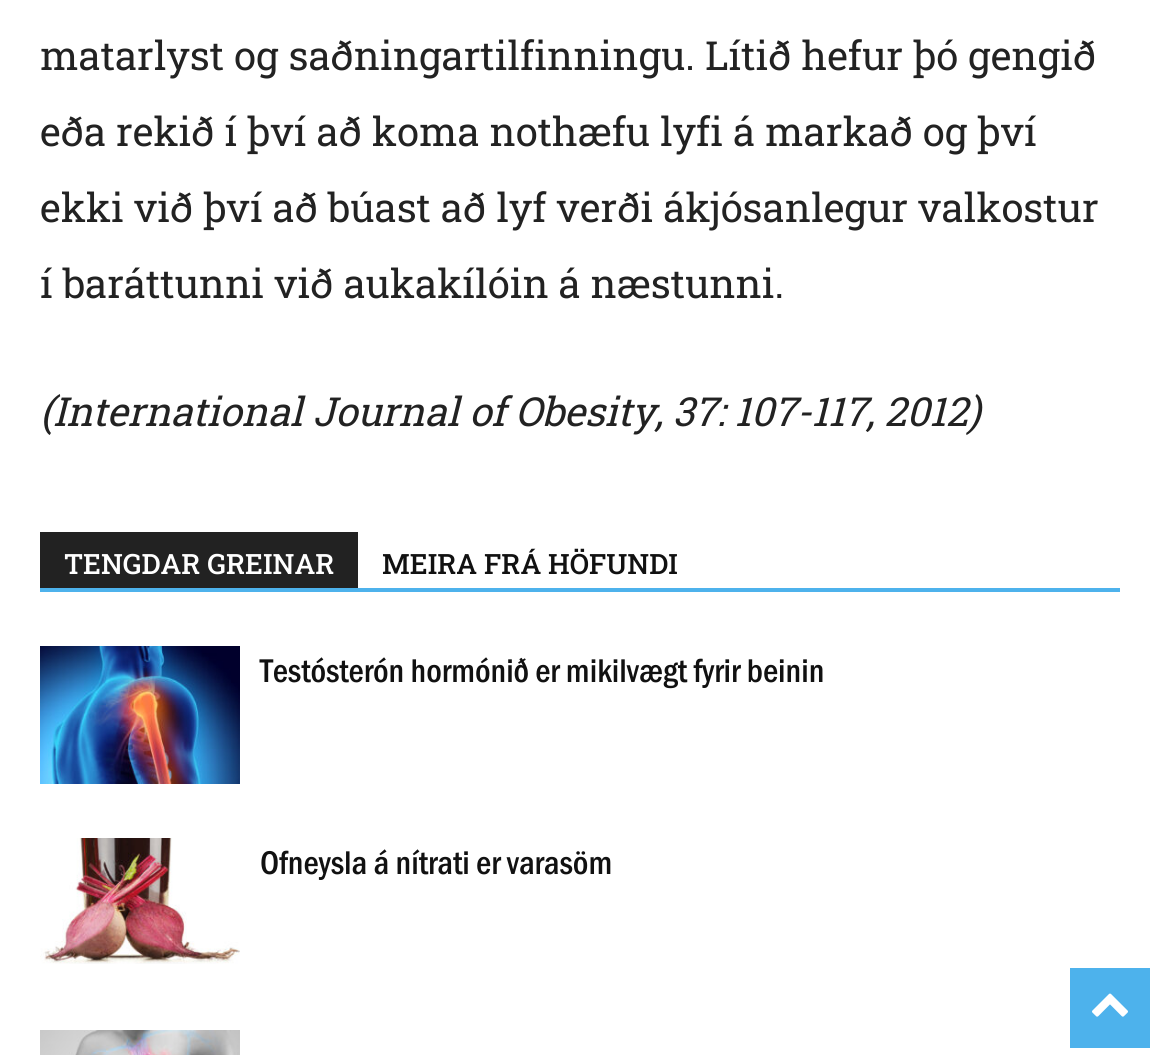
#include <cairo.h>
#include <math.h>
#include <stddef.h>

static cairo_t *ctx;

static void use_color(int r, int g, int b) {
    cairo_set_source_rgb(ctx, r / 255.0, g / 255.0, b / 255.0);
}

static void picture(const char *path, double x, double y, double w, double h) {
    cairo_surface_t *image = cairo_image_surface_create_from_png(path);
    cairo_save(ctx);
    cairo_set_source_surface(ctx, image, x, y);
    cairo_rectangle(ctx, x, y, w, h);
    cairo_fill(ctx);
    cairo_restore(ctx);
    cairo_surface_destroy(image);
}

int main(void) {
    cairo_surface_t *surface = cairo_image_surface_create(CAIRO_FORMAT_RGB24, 1160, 1055);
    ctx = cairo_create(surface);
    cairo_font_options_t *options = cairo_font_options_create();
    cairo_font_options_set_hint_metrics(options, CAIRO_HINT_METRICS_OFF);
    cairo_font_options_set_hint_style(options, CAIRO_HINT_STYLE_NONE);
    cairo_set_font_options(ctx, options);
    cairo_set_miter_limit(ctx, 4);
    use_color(255, 255, 255);
    cairo_paint(ctx);
    cairo_select_font_face(ctx, "Roboto Slab", CAIRO_FONT_SLANT_NORMAL, CAIRO_FONT_WEIGHT_NORMAL);
    cairo_set_font_size(ctx, 40);
    use_color(34, 34, 34);
    cairo_move_to(ctx, 40, 70);
    cairo_show_text(ctx, "matarlyst og saðningartilfinningu. Lítið hefur þó gengið");
    cairo_move_to(ctx, 40, 146);
    cairo_show_text(ctx, "eða rekið í því að koma nothæfu lyfi á markað og því");
    cairo_move_to(ctx, 40, 222);
    cairo_show_text(ctx, "ekki við því að búast að lyf verði ákjósanlegur valkostur");
    cairo_move_to(ctx, 40, 298);
    cairo_show_text(ctx, "í baráttunni við aukakílóin á næstunni.");
    cairo_select_font_face(ctx, "Roboto Slab", CAIRO_FONT_SLANT_ITALIC, CAIRO_FONT_WEIGHT_NORMAL);
    cairo_move_to(ctx, 40, 426);
    cairo_show_text(ctx, "(International Journal of Obesity, 37: 107-117, 2012)");
    use_color(77, 178, 236);
    cairo_rectangle(ctx, 40, 588, 1080, 4);
    cairo_fill(ctx);
    use_color(34, 34, 34);
    cairo_rectangle(ctx, 40, 532, 318, 56);
    cairo_fill(ctx);
    cairo_select_font_face(ctx, "Roboto Slab Medium", CAIRO_FONT_SLANT_NORMAL, CAIRO_FONT_WEIGHT_NORMAL);
    cairo_set_font_size(ctx, 28);
    use_color(255, 255, 255);
    cairo_move_to(ctx, 64, 574);
    cairo_show_text(ctx, "TENGDAR GREINAR");
    use_color(17, 17, 17);
    cairo_move_to(ctx, 382, 574);
    cairo_show_text(ctx, "MEIRA FRÁ HÖFUNDI");
    picture("img1.png", 40, 646, 200, 138);
    cairo_select_font_face(ctx, "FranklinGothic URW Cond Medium", CAIRO_FONT_SLANT_NORMAL, CAIRO_FONT_WEIGHT_NORMAL);
    cairo_set_font_size(ctx, 34);
    cairo_move_to(ctx, 260, 682);
    cairo_show_text(ctx, "Testósterón hormónið er mikilvægt fyrir beinin");
    picture("img2.png", 40, 838, 200, 126);
    cairo_move_to(ctx, 260, 874);
    cairo_show_text(ctx, "Ofneysla á nítrati er varasöm");
    picture("img3.png", 40, 1030, 200, 25);
    use_color(77, 178, 236);
    cairo_rectangle(ctx, 1070, 968, 80, 80);
    cairo_fill(ctx);
    picture("img4.png", 1092, 993, 36, 24);
    cairo_surface_write_to_png(surface, "result.png");
    cairo_font_options_destroy(options);
    cairo_destroy(ctx);
    cairo_surface_destroy(surface);
    return 0;
}
